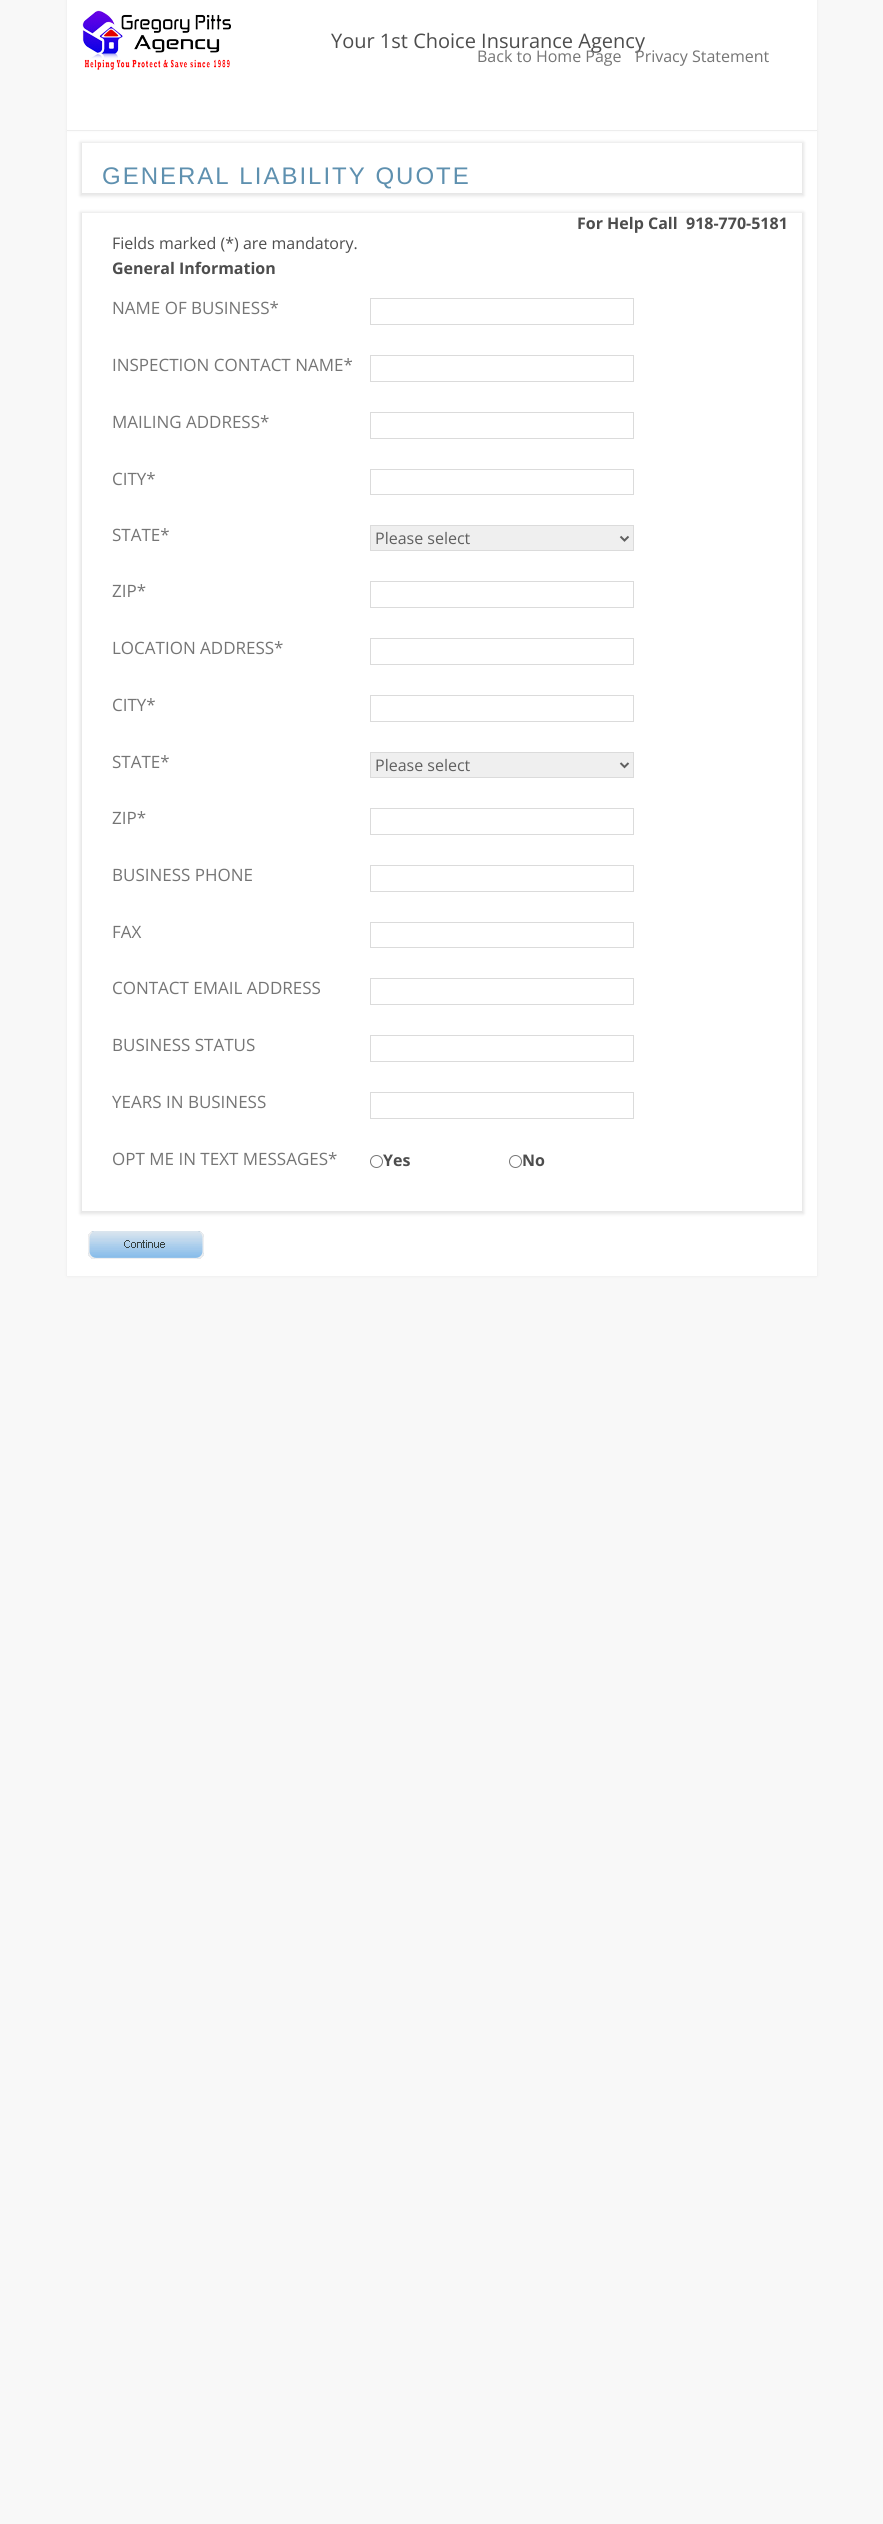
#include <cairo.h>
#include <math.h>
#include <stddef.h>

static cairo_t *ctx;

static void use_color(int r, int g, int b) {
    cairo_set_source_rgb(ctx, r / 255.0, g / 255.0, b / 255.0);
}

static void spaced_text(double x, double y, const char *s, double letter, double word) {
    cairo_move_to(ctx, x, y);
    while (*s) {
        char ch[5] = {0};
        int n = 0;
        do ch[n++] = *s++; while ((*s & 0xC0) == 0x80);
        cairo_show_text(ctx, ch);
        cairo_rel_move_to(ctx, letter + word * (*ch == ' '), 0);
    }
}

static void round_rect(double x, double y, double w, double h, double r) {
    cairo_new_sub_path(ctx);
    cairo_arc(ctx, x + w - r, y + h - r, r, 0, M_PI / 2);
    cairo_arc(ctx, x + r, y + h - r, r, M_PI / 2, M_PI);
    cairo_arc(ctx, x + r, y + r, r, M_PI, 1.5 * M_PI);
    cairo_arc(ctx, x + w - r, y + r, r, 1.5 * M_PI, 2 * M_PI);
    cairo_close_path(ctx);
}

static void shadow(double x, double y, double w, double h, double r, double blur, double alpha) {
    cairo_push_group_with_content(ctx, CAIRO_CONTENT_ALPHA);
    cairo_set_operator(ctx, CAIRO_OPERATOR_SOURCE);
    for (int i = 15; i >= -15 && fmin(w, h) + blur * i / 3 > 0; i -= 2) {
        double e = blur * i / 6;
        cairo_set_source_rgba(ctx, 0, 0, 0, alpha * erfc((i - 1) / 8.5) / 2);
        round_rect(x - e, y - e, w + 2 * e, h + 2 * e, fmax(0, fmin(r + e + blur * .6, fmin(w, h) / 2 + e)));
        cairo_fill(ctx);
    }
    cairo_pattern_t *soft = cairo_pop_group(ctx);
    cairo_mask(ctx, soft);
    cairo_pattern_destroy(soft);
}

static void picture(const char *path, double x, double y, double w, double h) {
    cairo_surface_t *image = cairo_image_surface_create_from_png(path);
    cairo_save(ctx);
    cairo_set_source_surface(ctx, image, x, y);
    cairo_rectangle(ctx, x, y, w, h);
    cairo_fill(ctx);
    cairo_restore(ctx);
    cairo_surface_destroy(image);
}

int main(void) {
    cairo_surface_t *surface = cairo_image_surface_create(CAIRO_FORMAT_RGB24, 883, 2524);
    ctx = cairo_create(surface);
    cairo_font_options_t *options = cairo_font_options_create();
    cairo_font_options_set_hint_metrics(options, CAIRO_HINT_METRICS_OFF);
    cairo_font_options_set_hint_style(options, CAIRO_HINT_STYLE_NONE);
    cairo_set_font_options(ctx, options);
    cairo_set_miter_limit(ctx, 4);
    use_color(248, 248, 248);
    cairo_paint(ctx);
    use_color(99, 99, 99);
    shadow(67, 131, 750, 1145, 0, 1.5, 0.1);
    use_color(255, 255, 255);
    cairo_rectangle(ctx, 67, 131, 750, 1145);
    cairo_fill(ctx);
    use_color(99, 99, 99);
    shadow(67, 0, 750, 130, 0, 1.5, 0.1);
    use_color(255, 255, 255);
    cairo_rectangle(ctx, 67, 0, 750, 130);
    cairo_fill(ctx);
    picture("img1.png", 82, 10, 149, 60);
    cairo_select_font_face(ctx, "Open Sans", CAIRO_FONT_SLANT_NORMAL, CAIRO_FONT_WEIGHT_NORMAL);
    cairo_set_font_size(ctx, 20);
    use_color(77, 77, 77);
    cairo_move_to(ctx, 331, 48);
    cairo_show_text(ctx, "Your 1st Choice Insurance Agency");
    cairo_set_font_size(ctx, 16);
    use_color(117, 117, 117);
    cairo_move_to(ctx, 477, 62);
    cairo_show_text(ctx, "Back to Home Page");
    cairo_move_to(ctx, 635, 62);
    cairo_show_text(ctx, "Privacy Statement");
    cairo_save(ctx);
    cairo_set_fill_rule(ctx, CAIRO_FILL_RULE_EVEN_ODD);
    cairo_new_path(ctx);
    cairo_move_to(ctx, 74, 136);
    cairo_line_to(ctx, 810, 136);
    cairo_line_to(ctx, 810, 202);
    cairo_line_to(ctx, 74, 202);
    cairo_close_path(ctx);
    cairo_move_to(ctx, 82, 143);
    cairo_line_to(ctx, 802, 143);
    cairo_line_to(ctx, 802, 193);
    cairo_line_to(ctx, 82, 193);
    cairo_close_path(ctx);
    cairo_clip(ctx);
    use_color(0, 0, 0);
    shadow(80, 142, 724, 54, 0, 1.5, 0.1);
    cairo_restore(ctx);
    cairo_select_font_face(ctx, "Liberation Sans", CAIRO_FONT_SLANT_NORMAL, CAIRO_FONT_WEIGHT_NORMAL);
    cairo_set_font_size(ctx, 24);
    use_color(94, 144, 175);
    spaced_text(102, 184, "GENERAL LIABILITY QUOTE", 2, 0);
    cairo_save(ctx);
    cairo_set_fill_rule(ctx, CAIRO_FILL_RULE_EVEN_ODD);
    cairo_new_path(ctx);
    cairo_move_to(ctx, 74, 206);
    cairo_line_to(ctx, 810, 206);
    cairo_line_to(ctx, 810, 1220);
    cairo_line_to(ctx, 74, 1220);
    cairo_close_path(ctx);
    cairo_move_to(ctx, 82, 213);
    cairo_line_to(ctx, 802, 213);
    cairo_line_to(ctx, 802, 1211);
    cairo_line_to(ctx, 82, 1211);
    cairo_close_path(ctx);
    cairo_clip(ctx);
    use_color(0, 0, 0);
    shadow(80, 212, 724, 1002, 0, 1.5, 0.1);
    cairo_restore(ctx);
    cairo_select_font_face(ctx, "Open Sans", CAIRO_FONT_SLANT_NORMAL, CAIRO_FONT_WEIGHT_BOLD);
    cairo_set_font_size(ctx, 16);
    use_color(77, 77, 77);
    cairo_move_to(ctx, 577, 229);
    cairo_show_text(ctx, "For Help Call");
    cairo_move_to(ctx, 686, 229);
    cairo_show_text(ctx, "918-770-5181");
    cairo_select_font_face(ctx, "Open Sans", CAIRO_FONT_SLANT_NORMAL, CAIRO_FONT_WEIGHT_NORMAL);
    cairo_move_to(ctx, 112, 249);
    cairo_show_text(ctx, "Fields marked (*) are mandatory.");
    cairo_select_font_face(ctx, "Open Sans", CAIRO_FONT_SLANT_NORMAL, CAIRO_FONT_WEIGHT_BOLD);
    cairo_move_to(ctx, 112, 274);
    cairo_show_text(ctx, "General Information");
    cairo_select_font_face(ctx, "Open Sans", CAIRO_FONT_SLANT_NORMAL, CAIRO_FONT_WEIGHT_NORMAL);
    cairo_set_font_size(ctx, 17);
    use_color(117, 117, 117);
    cairo_move_to(ctx, 112, 314);
    cairo_show_text(ctx, "NAME OF BUSINESS*");
    cairo_rectangle(ctx, 370.5, 298.5, 263, 26);
    use_color(219, 219, 219);
    cairo_set_line_width(ctx, 1);
    cairo_stroke(ctx);
    use_color(117, 117, 117);
    cairo_move_to(ctx, 112, 371);
    cairo_show_text(ctx, "INSPECTION CONTACT NAME*");
    cairo_rectangle(ctx, 370.5, 355.5, 263, 26);
    use_color(219, 219, 219);
    cairo_stroke(ctx);
    use_color(117, 117, 117);
    cairo_move_to(ctx, 112, 428);
    cairo_show_text(ctx, "MAILING ADDRESS*");
    cairo_rectangle(ctx, 370.5, 412.5, 263, 26);
    use_color(219, 219, 219);
    cairo_stroke(ctx);
    use_color(117, 117, 117);
    cairo_move_to(ctx, 112, 485);
    cairo_show_text(ctx, "CITY*");
    cairo_rectangle(ctx, 370.5, 469.5, 263, 25);
    use_color(219, 219, 219);
    cairo_stroke(ctx);
    use_color(117, 117, 117);
    cairo_move_to(ctx, 112, 541);
    cairo_show_text(ctx, "STATE*");
    use_color(239, 239, 239);
    cairo_rectangle(ctx, 370.5, 525.5, 263, 25);
    cairo_fill_preserve(ctx);
    use_color(219, 219, 219);
    cairo_stroke(ctx);
    cairo_new_path(ctx);
    cairo_move_to(ctx, 620.5, 536.5);
    cairo_line_to(ctx, 624.5, 540.5);
    cairo_line_to(ctx, 628.5, 536.5);
    use_color(95, 95, 95);
    cairo_set_line_width(ctx, 2);
    cairo_stroke(ctx);
    cairo_set_font_size(ctx, 16);
    cairo_move_to(ctx, 375, 544);
    cairo_show_text(ctx, "Please select");
    cairo_set_font_size(ctx, 17);
    use_color(117, 117, 117);
    cairo_move_to(ctx, 112, 597);
    cairo_show_text(ctx, "ZIP*");
    cairo_rectangle(ctx, 370.5, 581.5, 263, 26);
    use_color(219, 219, 219);
    cairo_set_line_width(ctx, 1);
    cairo_stroke(ctx);
    use_color(117, 117, 117);
    cairo_move_to(ctx, 112, 654);
    cairo_show_text(ctx, "LOCATION ADDRESS*");
    cairo_rectangle(ctx, 370.5, 638.5, 263, 26);
    use_color(219, 219, 219);
    cairo_stroke(ctx);
    use_color(117, 117, 117);
    cairo_move_to(ctx, 112, 711);
    cairo_show_text(ctx, "CITY*");
    cairo_rectangle(ctx, 370.5, 695.5, 263, 26);
    use_color(219, 219, 219);
    cairo_stroke(ctx);
    use_color(117, 117, 117);
    cairo_move_to(ctx, 112, 768);
    cairo_show_text(ctx, "STATE*");
    use_color(239, 239, 239);
    cairo_rectangle(ctx, 370.5, 752.5, 263, 25);
    cairo_fill_preserve(ctx);
    use_color(219, 219, 219);
    cairo_stroke(ctx);
    cairo_new_path(ctx);
    cairo_move_to(ctx, 620.5, 763);
    cairo_line_to(ctx, 624.5, 767);
    cairo_line_to(ctx, 628.5, 763);
    use_color(95, 95, 95);
    cairo_set_line_width(ctx, 2);
    cairo_stroke(ctx);
    cairo_set_font_size(ctx, 16);
    cairo_move_to(ctx, 375, 771);
    cairo_show_text(ctx, "Please select");
    cairo_set_font_size(ctx, 17);
    use_color(117, 117, 117);
    cairo_move_to(ctx, 112, 824);
    cairo_show_text(ctx, "ZIP*");
    cairo_rectangle(ctx, 370.5, 808.5, 263, 26);
    use_color(219, 219, 219);
    cairo_set_line_width(ctx, 1);
    cairo_stroke(ctx);
    use_color(117, 117, 117);
    cairo_move_to(ctx, 112, 881);
    cairo_show_text(ctx, "BUSINESS PHONE");
    cairo_rectangle(ctx, 370.5, 865.5, 263, 26);
    use_color(219, 219, 219);
    cairo_stroke(ctx);
    use_color(117, 117, 117);
    cairo_move_to(ctx, 112, 938);
    cairo_show_text(ctx, "FAX");
    cairo_rectangle(ctx, 370.5, 922.5, 263, 25);
    use_color(219, 219, 219);
    cairo_stroke(ctx);
    use_color(117, 117, 117);
    cairo_move_to(ctx, 112, 994);
    cairo_show_text(ctx, "CONTACT EMAIL ADDRESS");
    cairo_rectangle(ctx, 370.5, 978.5, 263, 26);
    use_color(219, 219, 219);
    cairo_stroke(ctx);
    use_color(117, 117, 117);
    cairo_move_to(ctx, 112, 1051);
    cairo_show_text(ctx, "BUSINESS STATUS");
    cairo_rectangle(ctx, 370.5, 1035.5, 263, 26);
    use_color(219, 219, 219);
    cairo_stroke(ctx);
    use_color(117, 117, 117);
    cairo_move_to(ctx, 112, 1108);
    cairo_show_text(ctx, "YEARS IN BUSINESS");
    cairo_rectangle(ctx, 370.5, 1092.5, 263, 26);
    use_color(219, 219, 219);
    cairo_stroke(ctx);
    use_color(117, 117, 117);
    cairo_move_to(ctx, 112, 1165);
    cairo_show_text(ctx, "OPT ME IN TEXT MESSAGES*");
    cairo_new_path(ctx);
    cairo_arc(ctx, 376.5, 1161.5, 6, 0, 2 * M_PI);
    use_color(118, 118, 118);
    cairo_stroke(ctx);
    cairo_select_font_face(ctx, "Open Sans", CAIRO_FONT_SLANT_NORMAL, CAIRO_FONT_WEIGHT_BOLD);
    cairo_set_font_size(ctx, 16);
    use_color(77, 77, 77);
    cairo_move_to(ctx, 383, 1166);
    cairo_show_text(ctx, "Yes");
    cairo_new_path(ctx);
    cairo_arc(ctx, 515.5, 1161.5, 6, 0, 2 * M_PI);
    use_color(118, 118, 118);
    cairo_stroke(ctx);
    use_color(77, 77, 77);
    cairo_move_to(ctx, 522, 1166);
    cairo_show_text(ctx, "No");
    picture("img2.png", 88, 1231, 116, 28);
    cairo_surface_write_to_png(surface, "result.png");
    cairo_font_options_destroy(options);
    cairo_destroy(ctx);
    cairo_surface_destroy(surface);
    return 0;
}
